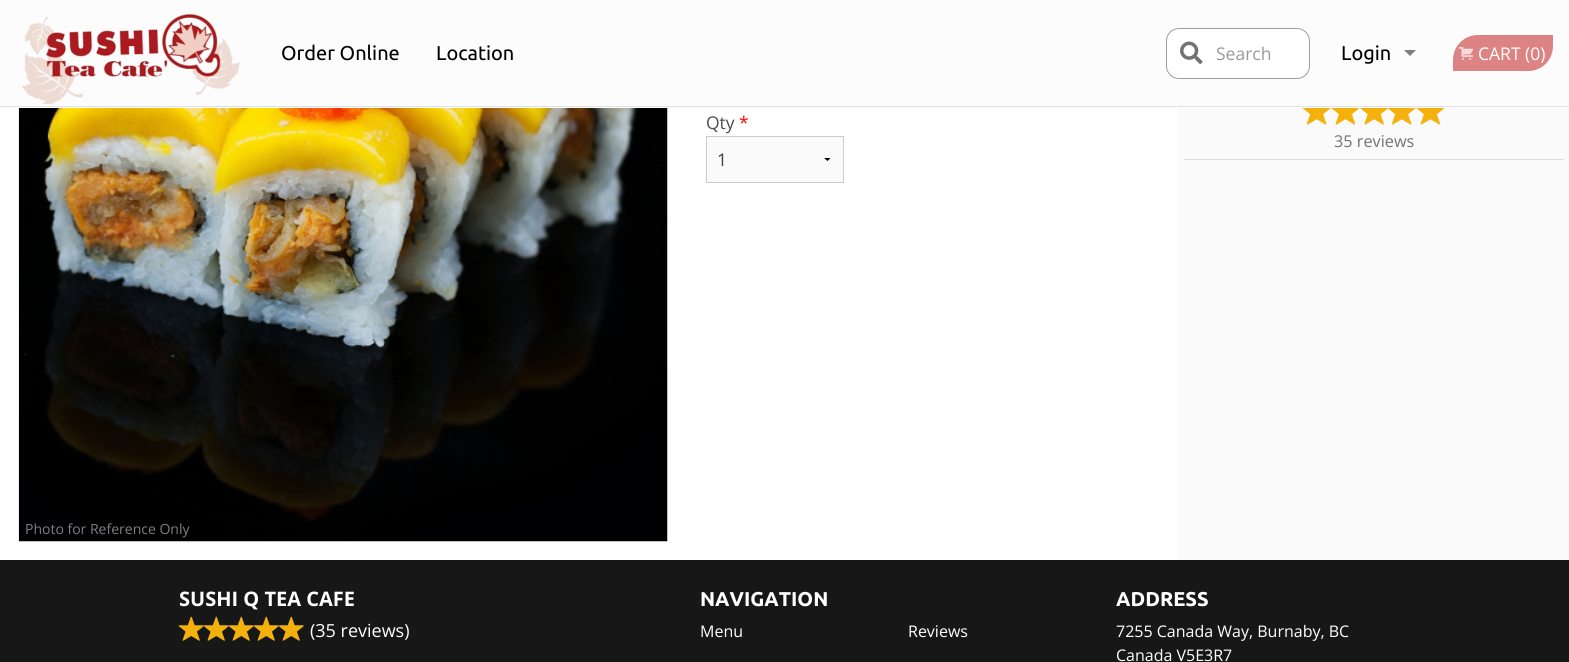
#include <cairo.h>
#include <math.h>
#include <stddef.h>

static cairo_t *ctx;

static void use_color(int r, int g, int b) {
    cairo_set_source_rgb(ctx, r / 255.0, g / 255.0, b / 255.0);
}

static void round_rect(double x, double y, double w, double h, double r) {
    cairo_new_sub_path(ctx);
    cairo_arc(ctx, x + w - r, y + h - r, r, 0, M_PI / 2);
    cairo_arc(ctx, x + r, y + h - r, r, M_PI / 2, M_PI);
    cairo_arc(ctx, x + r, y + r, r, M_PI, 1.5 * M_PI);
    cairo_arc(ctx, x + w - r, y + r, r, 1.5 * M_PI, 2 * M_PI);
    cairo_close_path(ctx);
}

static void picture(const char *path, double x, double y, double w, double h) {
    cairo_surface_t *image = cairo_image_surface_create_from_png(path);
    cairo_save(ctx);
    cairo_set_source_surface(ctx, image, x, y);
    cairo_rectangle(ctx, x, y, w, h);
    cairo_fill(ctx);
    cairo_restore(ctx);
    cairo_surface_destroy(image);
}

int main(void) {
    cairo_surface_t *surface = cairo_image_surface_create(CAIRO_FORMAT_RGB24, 1569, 662);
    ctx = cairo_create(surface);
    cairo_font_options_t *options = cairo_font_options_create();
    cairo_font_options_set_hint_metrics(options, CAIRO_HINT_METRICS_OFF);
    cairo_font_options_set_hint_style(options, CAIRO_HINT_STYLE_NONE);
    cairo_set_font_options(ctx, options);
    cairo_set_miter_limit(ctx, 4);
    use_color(255, 255, 255);
    cairo_paint(ctx);
    use_color(252, 252, 252);
    cairo_rectangle(ctx, 0, 0, 1569, 108);
    cairo_fill(ctx);
    use_color(226, 226, 226);
    cairo_rectangle(ctx, 0, 106, 1569, 1);
    cairo_fill(ctx);
    picture("img1.png", 22, 14, 218, 90);
    cairo_select_font_face(ctx, "Ubuntu", CAIRO_FONT_SLANT_NORMAL, CAIRO_FONT_WEIGHT_NORMAL);
    cairo_set_font_size(ctx, 20);
    use_color(0, 0, 0);
    cairo_move_to(ctx, 281, 60);
    cairo_show_text(ctx, "Order Online");
    cairo_move_to(ctx, 436, 60);
    cairo_show_text(ctx, "Location");
    use_color(255, 255, 255);
    round_rect(1166.5, 28.5, 143, 50, 12.5);
    cairo_fill_preserve(ctx);
    use_color(158, 158, 158);
    cairo_set_line_width(ctx, 1);
    cairo_stroke(ctx);
    picture("img2.png", 1180, 41, 23, 23);
    cairo_select_font_face(ctx, "Open Sans", CAIRO_FONT_SLANT_NORMAL, CAIRO_FONT_WEIGHT_NORMAL);
    cairo_set_font_size(ctx, 17.5);
    use_color(153, 153, 153);
    cairo_move_to(ctx, 1216, 60);
    cairo_show_text(ctx, "Search");
    cairo_select_font_face(ctx, "Ubuntu", CAIRO_FONT_SLANT_NORMAL, CAIRO_FONT_WEIGHT_NORMAL);
    cairo_set_font_size(ctx, 20);
    use_color(0, 0, 0);
    cairo_move_to(ctx, 1341, 60);
    cairo_show_text(ctx, "Login");
    use_color(126, 126, 126);
    cairo_new_path(ctx);
    cairo_move_to(ctx, 1404, 50);
    cairo_line_to(ctx, 1416, 50);
    cairo_line_to(ctx, 1410, 56);
    cairo_close_path(ctx);
    cairo_fill(ctx);
    use_color(221, 131, 131);
    cairo_new_path(ctx);
    cairo_move_to(ctx, 1478, 35);
    cairo_line_to(ctx, 1553, 35);
    cairo_line_to(ctx, 1553, 46);
    cairo_curve_to(ctx, 1553, 60, 1542, 71, 1528, 71);
    cairo_line_to(ctx, 1453, 71);
    cairo_line_to(ctx, 1453, 60);
    cairo_curve_to(ctx, 1453, 46, 1464, 35, 1478, 35);
    cairo_close_path(ctx);
    cairo_fill(ctx);
    picture("img3.png", 1458, 47, 16, 13);
    cairo_select_font_face(ctx, "Open Sans", CAIRO_FONT_SLANT_NORMAL, CAIRO_FONT_WEIGHT_NORMAL);
    cairo_set_font_size(ctx, 17.5);
    use_color(255, 255, 255);
    cairo_move_to(ctx, 1478, 60);
    cairo_show_text(ctx, "CART (0)");
    use_color(77, 77, 77);
    cairo_move_to(ctx, 706, 129);
    cairo_show_text(ctx, "Qty");
    use_color(255, 0, 0);
    cairo_move_to(ctx, 739, 129);
    cairo_show_text(ctx, "*");
    use_color(250, 250, 250);
    cairo_rectangle(ctx, 707, 137, 136, 45);
    cairo_fill(ctx);
    cairo_save(ctx);
    cairo_rectangle(ctx, 813, 158, 30, 4);
    cairo_clip(ctx);
    use_color(0, 0, 0);
    cairo_new_path(ctx);
    cairo_move_to(ctx, 831, 157.5);
    cairo_line_to(ctx, 827.5, 161);
    cairo_line_to(ctx, 823.5, 157.5);
    cairo_close_path(ctx);
    cairo_fill(ctx);
    cairo_restore(ctx);
    cairo_rectangle(ctx, 706.5, 136.5, 137, 46);
    use_color(204, 204, 204);
    cairo_stroke(ctx);
    use_color(63, 63, 63);
    cairo_move_to(ctx, 717, 166);
    cairo_show_text(ctx, "1");
    picture("img4.png", 18, 108, 650, 434);
    cairo_set_font_size(ctx, 14);
    use_color(128, 128, 128);
    cairo_move_to(ctx, 25, 534);
    cairo_show_text(ctx, "Photo for Reference Only");
    use_color(250, 250, 250);
    cairo_rectangle(ctx, 1178, 108, 391, 452);
    cairo_fill(ctx);
    picture("img5.png", 1302, 108, 29, 17);
    picture("img6.png", 1331, 108, 29, 17);
    picture("img7.png", 1360, 108, 29, 17);
    picture("img8.png", 1387, 108, 29, 17);
    picture("img6.png", 1416, 108, 29, 17);
    cairo_set_font_size(ctx, 16.25);
    use_color(115, 115, 115);
    cairo_move_to(ctx, 1334, 147);
    cairo_show_text(ctx, "35 reviews");
    use_color(221, 221, 221);
    cairo_rectangle(ctx, 1184, 159, 380, 1);
    cairo_fill(ctx);
    use_color(23, 23, 23);
    cairo_rectangle(ctx, 0, 560, 1569, 102);
    cairo_fill(ctx);
    cairo_select_font_face(ctx, "Open Sans", CAIRO_FONT_SLANT_NORMAL, CAIRO_FONT_WEIGHT_BOLD);
    cairo_set_font_size(ctx, 20);
    use_color(255, 255, 255);
    cairo_move_to(ctx, 179, 606);
    cairo_show_text(ctx, "SUSHI Q TEA CAFE");
    picture("img9.png", 178, 616, 26, 25);
    picture("img10.png", 203, 616, 26, 25);
    picture("img10.png", 228, 616, 26, 25);
    picture("img10.png", 253, 616, 26, 25);
    picture("img10.png", 278, 616, 26, 25);
    cairo_select_font_face(ctx, "Open Sans", CAIRO_FONT_SLANT_NORMAL, CAIRO_FONT_WEIGHT_NORMAL);
    cairo_set_font_size(ctx, 18);
    cairo_move_to(ctx, 310, 637);
    cairo_show_text(ctx, "(35 reviews)");
    cairo_select_font_face(ctx, "Ubuntu", CAIRO_FONT_SLANT_NORMAL, CAIRO_FONT_WEIGHT_BOLD);
    cairo_set_font_size(ctx, 20);
    cairo_move_to(ctx, 700, 606);
    cairo_show_text(ctx, "NAVIGATION");
    cairo_select_font_face(ctx, "Open Sans", CAIRO_FONT_SLANT_NORMAL, CAIRO_FONT_WEIGHT_NORMAL);
    cairo_set_font_size(ctx, 16);
    cairo_move_to(ctx, 700, 637);
    cairo_show_text(ctx, "Menu");
    cairo_move_to(ctx, 908, 637);
    cairo_show_text(ctx, "Reviews");
    cairo_select_font_face(ctx, "Ubuntu", CAIRO_FONT_SLANT_NORMAL, CAIRO_FONT_WEIGHT_BOLD);
    cairo_set_font_size(ctx, 20);
    cairo_move_to(ctx, 1116, 606);
    cairo_show_text(ctx, "ADDRESS");
    cairo_select_font_face(ctx, "Open Sans", CAIRO_FONT_SLANT_NORMAL, CAIRO_FONT_WEIGHT_NORMAL);
    cairo_set_font_size(ctx, 16);
    cairo_move_to(ctx, 1116, 637);
    cairo_show_text(ctx, "7255 Canada Way, Burnaby, BC");
    cairo_move_to(ctx, 1116, 661);
    cairo_show_text(ctx, "Canada V5E3R7");
    cairo_surface_write_to_png(surface, "result.png");
    cairo_font_options_destroy(options);
    cairo_destroy(ctx);
    cairo_surface_destroy(surface);
    return 0;
}
